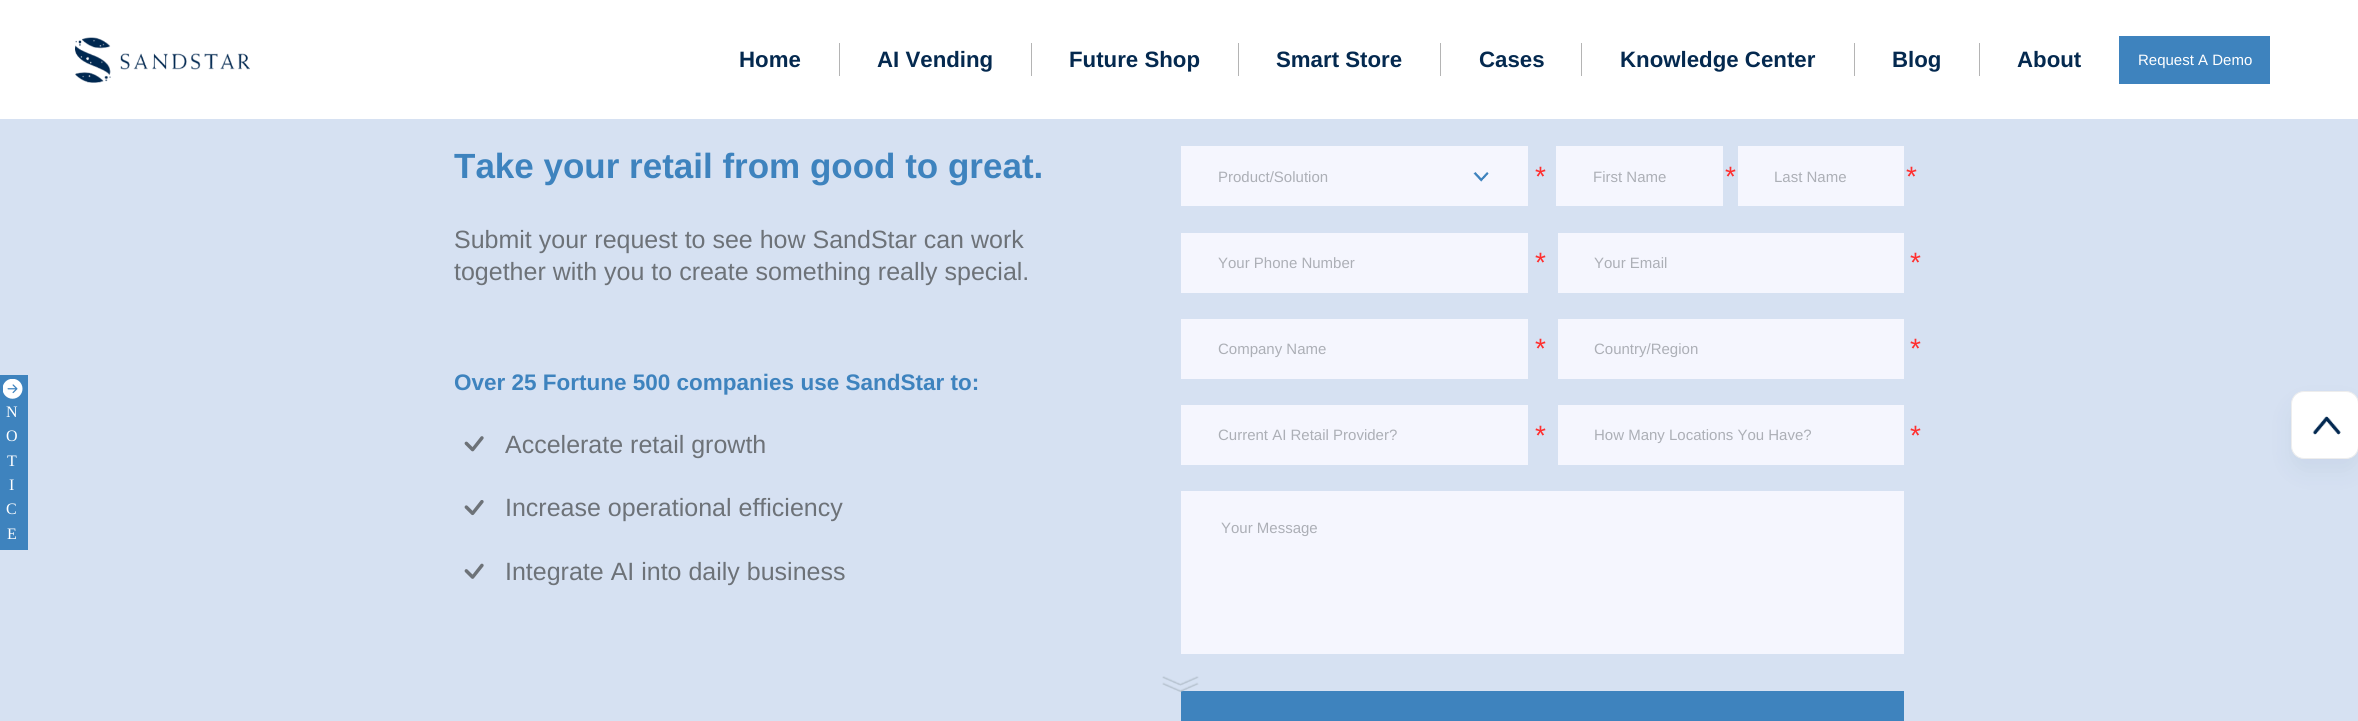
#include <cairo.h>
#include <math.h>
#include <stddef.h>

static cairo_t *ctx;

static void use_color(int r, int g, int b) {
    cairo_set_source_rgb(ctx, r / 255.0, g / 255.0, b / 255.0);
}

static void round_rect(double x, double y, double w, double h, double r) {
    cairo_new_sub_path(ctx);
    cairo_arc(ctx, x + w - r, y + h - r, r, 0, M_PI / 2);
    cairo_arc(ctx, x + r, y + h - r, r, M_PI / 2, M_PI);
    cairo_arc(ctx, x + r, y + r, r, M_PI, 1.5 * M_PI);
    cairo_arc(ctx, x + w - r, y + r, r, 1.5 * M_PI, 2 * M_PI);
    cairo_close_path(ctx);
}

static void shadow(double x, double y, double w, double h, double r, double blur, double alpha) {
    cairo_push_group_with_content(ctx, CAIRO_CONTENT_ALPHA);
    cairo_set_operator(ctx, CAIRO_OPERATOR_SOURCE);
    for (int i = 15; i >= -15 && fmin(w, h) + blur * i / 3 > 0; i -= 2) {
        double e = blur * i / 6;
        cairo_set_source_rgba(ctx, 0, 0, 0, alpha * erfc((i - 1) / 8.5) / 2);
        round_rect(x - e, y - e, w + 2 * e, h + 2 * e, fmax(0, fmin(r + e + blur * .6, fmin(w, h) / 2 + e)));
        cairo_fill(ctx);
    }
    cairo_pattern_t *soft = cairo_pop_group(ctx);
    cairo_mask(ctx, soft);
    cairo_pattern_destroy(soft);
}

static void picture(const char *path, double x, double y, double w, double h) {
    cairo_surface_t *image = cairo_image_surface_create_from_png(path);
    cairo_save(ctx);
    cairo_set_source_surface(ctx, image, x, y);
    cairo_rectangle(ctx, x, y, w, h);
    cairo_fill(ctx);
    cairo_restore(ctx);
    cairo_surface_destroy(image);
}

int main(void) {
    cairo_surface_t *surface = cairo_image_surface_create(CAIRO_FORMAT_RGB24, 2358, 721);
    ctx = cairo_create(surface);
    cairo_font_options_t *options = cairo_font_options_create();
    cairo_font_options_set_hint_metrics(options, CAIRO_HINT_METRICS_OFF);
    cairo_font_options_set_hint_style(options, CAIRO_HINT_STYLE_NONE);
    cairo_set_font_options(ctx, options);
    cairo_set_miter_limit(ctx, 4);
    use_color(214, 225, 242);
    cairo_paint(ctx);
    use_color(255, 255, 255);
    cairo_rectangle(ctx, 0, 0, 2358, 119);
    cairo_fill(ctx);
    picture("img1.png", 75, 37, 175, 46);
    use_color(180, 180, 180);
    cairo_rectangle(ctx, 839, 43, 1, 33);
    cairo_fill(ctx);
    cairo_select_font_face(ctx, "Liberation Sans", CAIRO_FONT_SLANT_NORMAL, CAIRO_FONT_WEIGHT_BOLD);
    cairo_set_font_size(ctx, 22.25);
    use_color(4, 41, 79);
    cairo_move_to(ctx, 739, 67);
    cairo_show_text(ctx, "Home");
    use_color(180, 180, 180);
    cairo_rectangle(ctx, 1031, 43, 1, 33);
    cairo_fill(ctx);
    use_color(4, 41, 79);
    cairo_move_to(ctx, 877, 67);
    cairo_show_text(ctx, "AI Vending");
    use_color(180, 180, 180);
    cairo_rectangle(ctx, 1238, 43, 1, 33);
    cairo_fill(ctx);
    use_color(4, 41, 79);
    cairo_move_to(ctx, 1069, 67);
    cairo_show_text(ctx, "Future Shop");
    use_color(180, 180, 180);
    cairo_rectangle(ctx, 1440, 43, 1, 33);
    cairo_fill(ctx);
    use_color(4, 41, 79);
    cairo_move_to(ctx, 1276, 67);
    cairo_show_text(ctx, "Smart Store");
    use_color(180, 180, 180);
    cairo_rectangle(ctx, 1581, 43, 1, 33);
    cairo_fill(ctx);
    use_color(4, 41, 79);
    cairo_move_to(ctx, 1479, 67);
    cairo_show_text(ctx, "Cases");
    use_color(180, 180, 180);
    cairo_rectangle(ctx, 1854, 43, 1, 33);
    cairo_fill(ctx);
    use_color(4, 41, 79);
    cairo_move_to(ctx, 1620, 67);
    cairo_show_text(ctx, "Knowledge Center");
    use_color(180, 180, 180);
    cairo_rectangle(ctx, 1979, 43, 1, 33);
    cairo_fill(ctx);
    use_color(4, 41, 79);
    cairo_move_to(ctx, 1892, 67);
    cairo_show_text(ctx, "Blog");
    cairo_move_to(ctx, 2017, 67);
    cairo_show_text(ctx, "About");
    use_color(62, 131, 190);
    cairo_rectangle(ctx, 2119, 36, 151, 48);
    cairo_fill(ctx);
    cairo_select_font_face(ctx, "Liberation Sans", CAIRO_FONT_SLANT_NORMAL, CAIRO_FONT_WEIGHT_NORMAL);
    cairo_set_font_size(ctx, 15);
    use_color(255, 255, 255);
    cairo_move_to(ctx, 2138, 65);
    cairo_show_text(ctx, "Request A Demo");
    use_color(62, 131, 190);
    cairo_rectangle(ctx, 0, 375, 28, 175);
    cairo_fill(ctx);
    picture("img2.png", 3, 379, 20, 20);
    cairo_select_font_face(ctx, "Liberation Serif", CAIRO_FONT_SLANT_NORMAL, CAIRO_FONT_WEIGHT_NORMAL);
    cairo_set_font_size(ctx, 16);
    use_color(255, 255, 255);
    cairo_move_to(ctx, 6, 417);
    cairo_show_text(ctx, "N");
    cairo_move_to(ctx, 6, 441);
    cairo_show_text(ctx, "O");
    cairo_move_to(ctx, 7, 466);
    cairo_show_text(ctx, "T");
    cairo_move_to(ctx, 9, 490);
    cairo_show_text(ctx, "I");
    cairo_move_to(ctx, 6, 514);
    cairo_show_text(ctx, "C");
    cairo_move_to(ctx, 7, 539);
    cairo_show_text(ctx, "E");
    cairo_select_font_face(ctx, "Liberation Sans", CAIRO_FONT_SLANT_NORMAL, CAIRO_FONT_WEIGHT_BOLD);
    cairo_set_font_size(ctx, 35);
    use_color(62, 131, 190);
    cairo_move_to(ctx, 454, 178);
    cairo_show_text(ctx, "Take your retail from good to great.");
    cairo_select_font_face(ctx, "Liberation Sans", CAIRO_FONT_SLANT_NORMAL, CAIRO_FONT_WEIGHT_NORMAL);
    cairo_set_font_size(ctx, 25);
    use_color(109, 114, 120);
    cairo_move_to(ctx, 454, 248);
    cairo_show_text(ctx, "Submit your request to see how SandStar can work");
    cairo_move_to(ctx, 454, 280);
    cairo_show_text(ctx, "together with you to create something really special.");
    cairo_select_font_face(ctx, "Liberation Sans", CAIRO_FONT_SLANT_NORMAL, CAIRO_FONT_WEIGHT_BOLD);
    cairo_set_font_size(ctx, 22.5);
    use_color(62, 131, 190);
    cairo_move_to(ctx, 454, 390);
    cairo_show_text(ctx, "Over 25 Fortune 500 companies use SandStar to:");
    picture("img3.png", 464, 436, 20, 16);
    cairo_select_font_face(ctx, "Liberation Sans", CAIRO_FONT_SLANT_NORMAL, CAIRO_FONT_WEIGHT_NORMAL);
    cairo_set_font_size(ctx, 25);
    use_color(109, 114, 120);
    cairo_move_to(ctx, 505, 453);
    cairo_show_text(ctx, "Accelerate retail growth");
    picture("img4.png", 464, 500, 20, 16);
    cairo_move_to(ctx, 505, 516);
    cairo_show_text(ctx, "Increase operational efficiency");
    picture("img5.png", 464, 563, 20, 16);
    cairo_move_to(ctx, 505, 580);
    cairo_show_text(ctx, "Integrate AI into daily business");
    use_color(245, 246, 254);
    cairo_rectangle(ctx, 1181, 146, 347, 60);
    cairo_fill(ctx);
    cairo_set_font_size(ctx, 15);
    use_color(172, 175, 182);
    cairo_move_to(ctx, 1218, 182);
    cairo_show_text(ctx, "Product/Solution");
    picture("img6.png", 1473, 172, 16, 10);
    cairo_set_font_size(ctx, 28);
    use_color(255, 47, 47);
    cairo_move_to(ctx, 1535, 186);
    cairo_show_text(ctx, "*");
    use_color(245, 246, 254);
    cairo_rectangle(ctx, 1556, 146, 167, 60);
    cairo_fill(ctx);
    cairo_set_font_size(ctx, 15);
    use_color(172, 175, 182);
    cairo_move_to(ctx, 1593, 182);
    cairo_show_text(ctx, "First Name");
    cairo_set_font_size(ctx, 28);
    use_color(255, 47, 47);
    cairo_move_to(ctx, 1725, 186);
    cairo_show_text(ctx, "*");
    use_color(245, 246, 254);
    cairo_rectangle(ctx, 1738, 146, 166, 60);
    cairo_fill(ctx);
    cairo_set_font_size(ctx, 15);
    use_color(172, 175, 182);
    cairo_move_to(ctx, 1774, 182);
    cairo_show_text(ctx, "Last Name");
    cairo_set_font_size(ctx, 28);
    use_color(255, 47, 47);
    cairo_move_to(ctx, 1906, 186);
    cairo_show_text(ctx, "*");
    use_color(245, 246, 254);
    cairo_rectangle(ctx, 1181, 233, 347, 60);
    cairo_fill(ctx);
    cairo_set_font_size(ctx, 15);
    use_color(172, 175, 182);
    cairo_move_to(ctx, 1218, 268);
    cairo_show_text(ctx, "Your Phone Number");
    cairo_set_font_size(ctx, 28);
    use_color(255, 47, 47);
    cairo_move_to(ctx, 1535, 272);
    cairo_show_text(ctx, "*");
    use_color(245, 246, 254);
    cairo_rectangle(ctx, 1558, 233, 346, 60);
    cairo_fill(ctx);
    cairo_set_font_size(ctx, 15);
    use_color(172, 175, 182);
    cairo_move_to(ctx, 1594, 268);
    cairo_show_text(ctx, "Your Email");
    cairo_set_font_size(ctx, 28);
    use_color(255, 47, 47);
    cairo_move_to(ctx, 1910, 272);
    cairo_show_text(ctx, "*");
    use_color(245, 246, 254);
    cairo_rectangle(ctx, 1181, 319, 347, 60);
    cairo_fill(ctx);
    cairo_set_font_size(ctx, 15);
    use_color(172, 175, 182);
    cairo_move_to(ctx, 1218, 354);
    cairo_show_text(ctx, "Company Name");
    cairo_set_font_size(ctx, 28);
    use_color(255, 47, 47);
    cairo_move_to(ctx, 1535, 358);
    cairo_show_text(ctx, "*");
    use_color(245, 246, 254);
    cairo_rectangle(ctx, 1558, 319, 346, 60);
    cairo_fill(ctx);
    cairo_set_font_size(ctx, 15);
    use_color(172, 175, 182);
    cairo_move_to(ctx, 1594, 354);
    cairo_show_text(ctx, "Country/Region");
    cairo_set_font_size(ctx, 28);
    use_color(255, 47, 47);
    cairo_move_to(ctx, 1910, 358);
    cairo_show_text(ctx, "*");
    use_color(245, 246, 254);
    cairo_rectangle(ctx, 1181, 405, 347, 60);
    cairo_fill(ctx);
    cairo_set_font_size(ctx, 15);
    use_color(172, 175, 182);
    cairo_move_to(ctx, 1218, 440);
    cairo_show_text(ctx, "Current AI Retail Provider?");
    cairo_set_font_size(ctx, 28);
    use_color(255, 47, 47);
    cairo_move_to(ctx, 1535, 445);
    cairo_show_text(ctx, "*");
    use_color(245, 246, 254);
    cairo_rectangle(ctx, 1558, 405, 346, 60);
    cairo_fill(ctx);
    cairo_set_font_size(ctx, 15);
    use_color(172, 175, 182);
    cairo_move_to(ctx, 1594, 440);
    cairo_show_text(ctx, "How Many Locations You Have?");
    cairo_set_font_size(ctx, 28);
    use_color(255, 47, 47);
    cairo_move_to(ctx, 1910, 445);
    cairo_show_text(ctx, "*");
    use_color(245, 246, 254);
    cairo_rectangle(ctx, 1181, 491, 723, 163);
    cairo_fill(ctx);
    cairo_set_font_size(ctx, 15);
    use_color(172, 175, 182);
    cairo_move_to(ctx, 1221, 533);
    cairo_show_text(ctx, "Your Message");
    use_color(62, 131, 190);
    cairo_rectangle(ctx, 1181, 691, 723, 30);
    cairo_fill(ctx);
    picture("img7.png", 1162, 676, 37, 16);
    use_color(11, 47, 83);
    shadow(2291, 404, 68, 67, 13, 12.5, 0.06);
    use_color(255, 255, 255);
    round_rect(2291.5, 391.5, 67, 67, 12.5);
    cairo_fill_preserve(ctx);
    use_color(237, 237, 237);
    cairo_set_line_width(ctx, 1);
    cairo_stroke(ctx);
    picture("img8.png", 2312, 416, 29, 19);
    cairo_surface_write_to_png(surface, "result.png");
    cairo_font_options_destroy(options);
    cairo_destroy(ctx);
    cairo_surface_destroy(surface);
    return 0;
}
